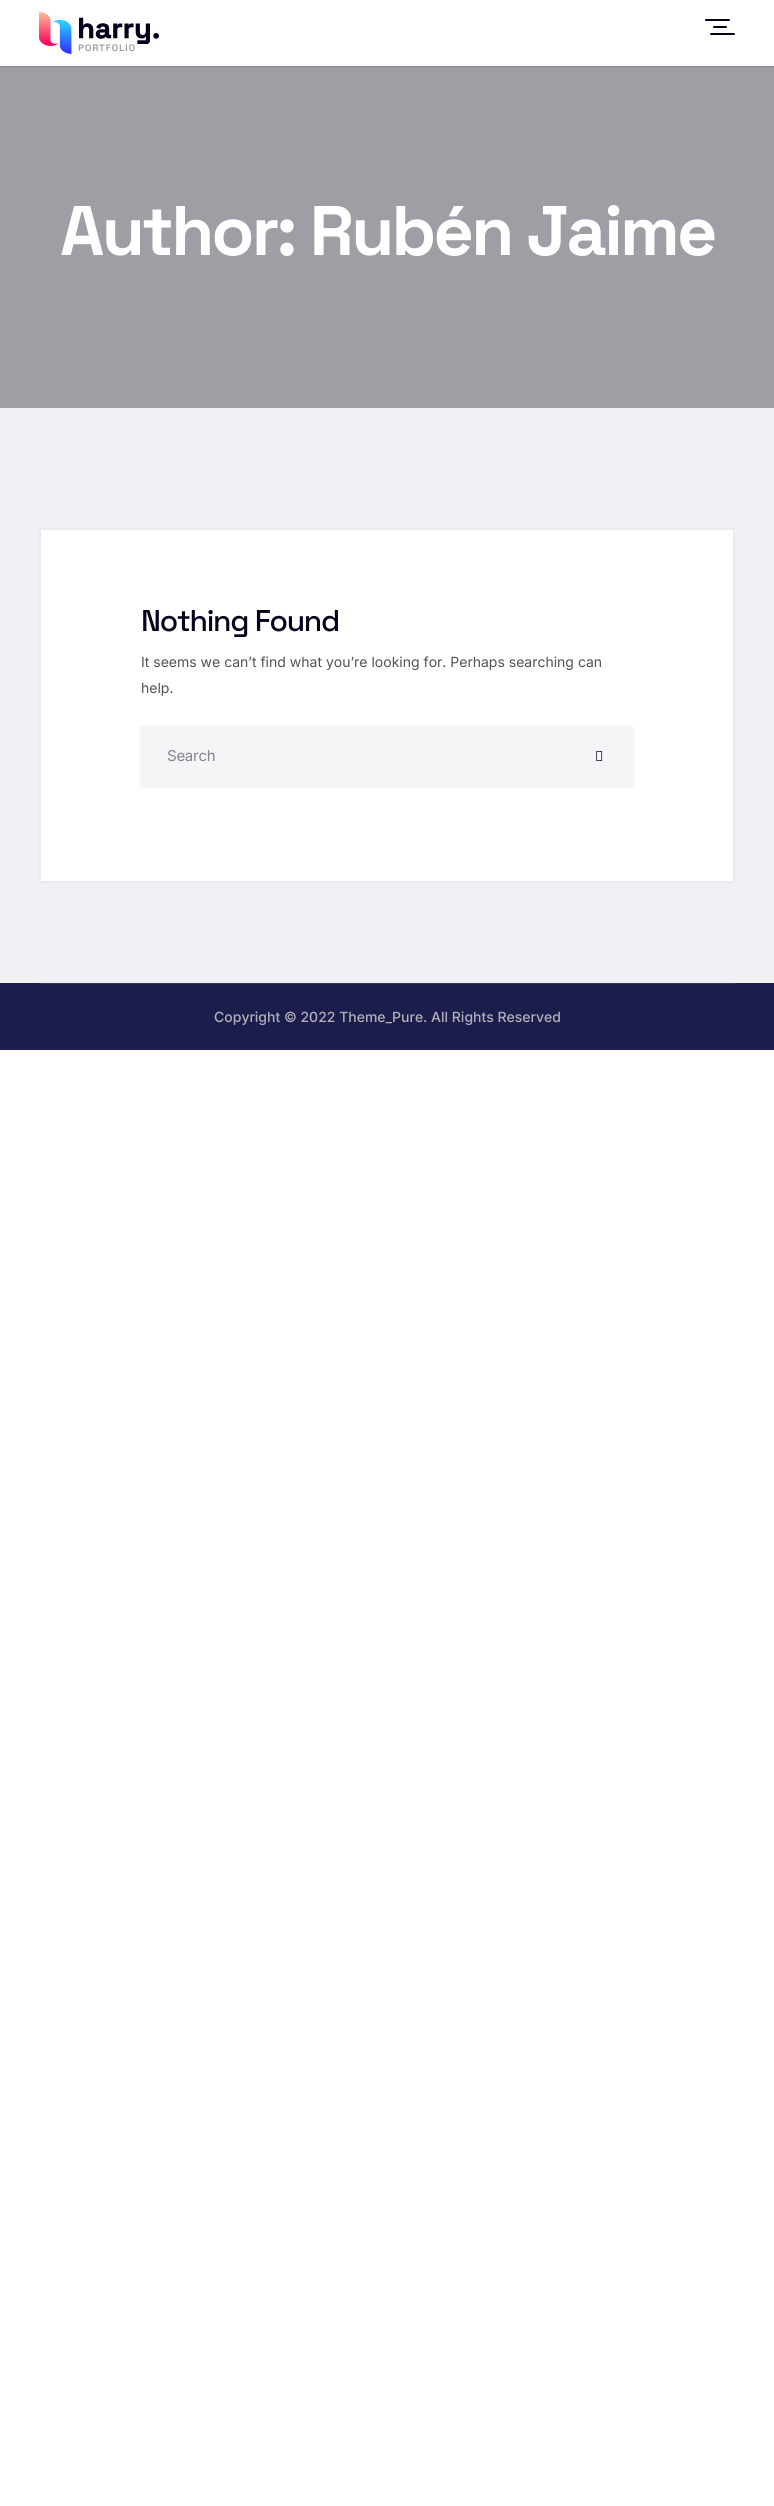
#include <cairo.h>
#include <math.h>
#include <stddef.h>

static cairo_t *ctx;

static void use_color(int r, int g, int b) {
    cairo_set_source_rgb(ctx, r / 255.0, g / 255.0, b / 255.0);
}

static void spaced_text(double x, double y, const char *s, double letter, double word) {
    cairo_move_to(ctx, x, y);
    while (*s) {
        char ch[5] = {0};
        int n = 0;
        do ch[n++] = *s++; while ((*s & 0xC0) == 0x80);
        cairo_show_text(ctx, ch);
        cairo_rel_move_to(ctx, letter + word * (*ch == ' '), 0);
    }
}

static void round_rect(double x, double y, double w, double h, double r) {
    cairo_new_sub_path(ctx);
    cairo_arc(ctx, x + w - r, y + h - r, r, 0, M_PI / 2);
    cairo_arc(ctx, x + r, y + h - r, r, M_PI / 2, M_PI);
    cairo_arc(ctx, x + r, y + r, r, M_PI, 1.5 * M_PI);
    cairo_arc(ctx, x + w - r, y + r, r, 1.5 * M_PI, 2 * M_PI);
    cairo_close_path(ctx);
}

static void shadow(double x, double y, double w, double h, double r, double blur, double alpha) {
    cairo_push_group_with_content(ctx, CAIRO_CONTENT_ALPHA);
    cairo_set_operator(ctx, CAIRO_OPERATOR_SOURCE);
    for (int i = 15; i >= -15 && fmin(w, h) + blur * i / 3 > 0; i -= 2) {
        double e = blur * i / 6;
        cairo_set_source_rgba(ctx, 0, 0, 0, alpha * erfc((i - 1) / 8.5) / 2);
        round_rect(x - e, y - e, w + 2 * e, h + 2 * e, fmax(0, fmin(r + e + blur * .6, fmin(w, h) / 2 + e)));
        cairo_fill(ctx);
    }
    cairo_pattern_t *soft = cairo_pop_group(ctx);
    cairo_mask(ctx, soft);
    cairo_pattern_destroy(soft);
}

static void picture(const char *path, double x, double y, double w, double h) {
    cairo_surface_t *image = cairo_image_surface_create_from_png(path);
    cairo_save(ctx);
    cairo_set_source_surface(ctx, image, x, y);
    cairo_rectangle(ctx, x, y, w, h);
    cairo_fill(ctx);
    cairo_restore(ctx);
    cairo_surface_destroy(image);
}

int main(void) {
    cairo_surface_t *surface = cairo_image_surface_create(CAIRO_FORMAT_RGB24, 774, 2506);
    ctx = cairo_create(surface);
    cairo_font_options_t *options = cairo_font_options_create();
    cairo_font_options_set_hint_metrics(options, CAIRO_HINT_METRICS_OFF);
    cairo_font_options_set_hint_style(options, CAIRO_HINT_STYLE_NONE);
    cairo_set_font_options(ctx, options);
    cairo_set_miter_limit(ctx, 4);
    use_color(255, 255, 255);
    cairo_paint(ctx);
    use_color(158, 158, 165);
    cairo_rectangle(ctx, 0, 66, 774, 342);
    cairo_fill(ctx);
    cairo_save(ctx);
    cairo_rectangle(ctx, 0, 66, 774, 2);
    cairo_clip(ctx);
    use_color(3, 4, 28);
    shadow(0, 1, 774, 66, 0, 1.5, 0.12);
    cairo_restore(ctx);
    picture("img1.png", 39, 12, 120, 42);
    use_color(3, 4, 28);
    round_rect(705, 19, 25, 2, 1);
    cairo_fill(ctx);
    round_rect(713, 26, 14, 2, 1);
    cairo_fill(ctx);
    round_rect(710, 33, 25, 2, 1);
    cairo_fill(ctx);
    cairo_select_font_face(ctx, "Space Grotesk", CAIRO_FONT_SLANT_NORMAL, CAIRO_FONT_WEIGHT_BOLD);
    cairo_set_font_size(ctx, 70);
    use_color(255, 255, 255);
    spaced_text(60, 255, "Author: Rubén Jaime", -2.75, 0);
    use_color(240, 240, 245);
    cairo_rectangle(ctx, 0, 408, 774, 575);
    cairo_fill(ctx);
    use_color(255, 255, 255);
    cairo_rectangle(ctx, 40, 529, 694, 353);
    cairo_fill_preserve(ctx);
    use_color(234, 234, 239);
    cairo_stroke(ctx);
    cairo_select_font_face(ctx, "Space Grotesk Medium", CAIRO_FONT_SLANT_NORMAL, CAIRO_FONT_WEIGHT_NORMAL);
    cairo_set_font_size(ctx, 30);
    use_color(3, 4, 28);
    spaced_text(141, 631, "Nothing Found", -1.25, 0);
    cairo_select_font_face(ctx, "Inter", CAIRO_FONT_SLANT_NORMAL, CAIRO_FONT_WEIGHT_NORMAL);
    cairo_set_font_size(ctx, 14);
    use_color(82, 82, 88);
    cairo_move_to(ctx, 141, 667);
    cairo_show_text(ctx, "It seems we can’t find what you’re looking for. Perhaps searching can");
    cairo_move_to(ctx, 141, 693);
    cairo_show_text(ctx, "help.");
    use_color(3, 4, 28);
    shadow(141, 727, 492, 60, 0, 1.5, 0.06);
    use_color(245, 245, 248);
    cairo_rectangle(ctx, 141, 726, 492, 60);
    cairo_fill(ctx);
    cairo_set_font_size(ctx, 15);
    use_color(133, 133, 139);
    spaced_text(167, 761, "Search", -0.25, 0);
    picture("img2.png", 596, 751, 7, 10);
    use_color(29, 29, 77);
    cairo_rectangle(ctx, 0, 983, 774, 67);
    cairo_fill(ctx);
    use_color(52, 52, 95);
    cairo_rectangle(ctx, 39, 983, 696, 1);
    cairo_fill(ctx);
    cairo_select_font_face(ctx, "Inter Medium", CAIRO_FONT_SLANT_NORMAL, CAIRO_FONT_WEIGHT_NORMAL);
    cairo_set_font_size(ctx, 14);
    use_color(176, 176, 184);
    cairo_move_to(ctx, 214, 1022);
    cairo_show_text(ctx, "Copyright © 2022 Theme_Pure. All Rights Reserved");
    cairo_surface_write_to_png(surface, "result.png");
    cairo_font_options_destroy(options);
    cairo_destroy(ctx);
    cairo_surface_destroy(surface);
    return 0;
}
